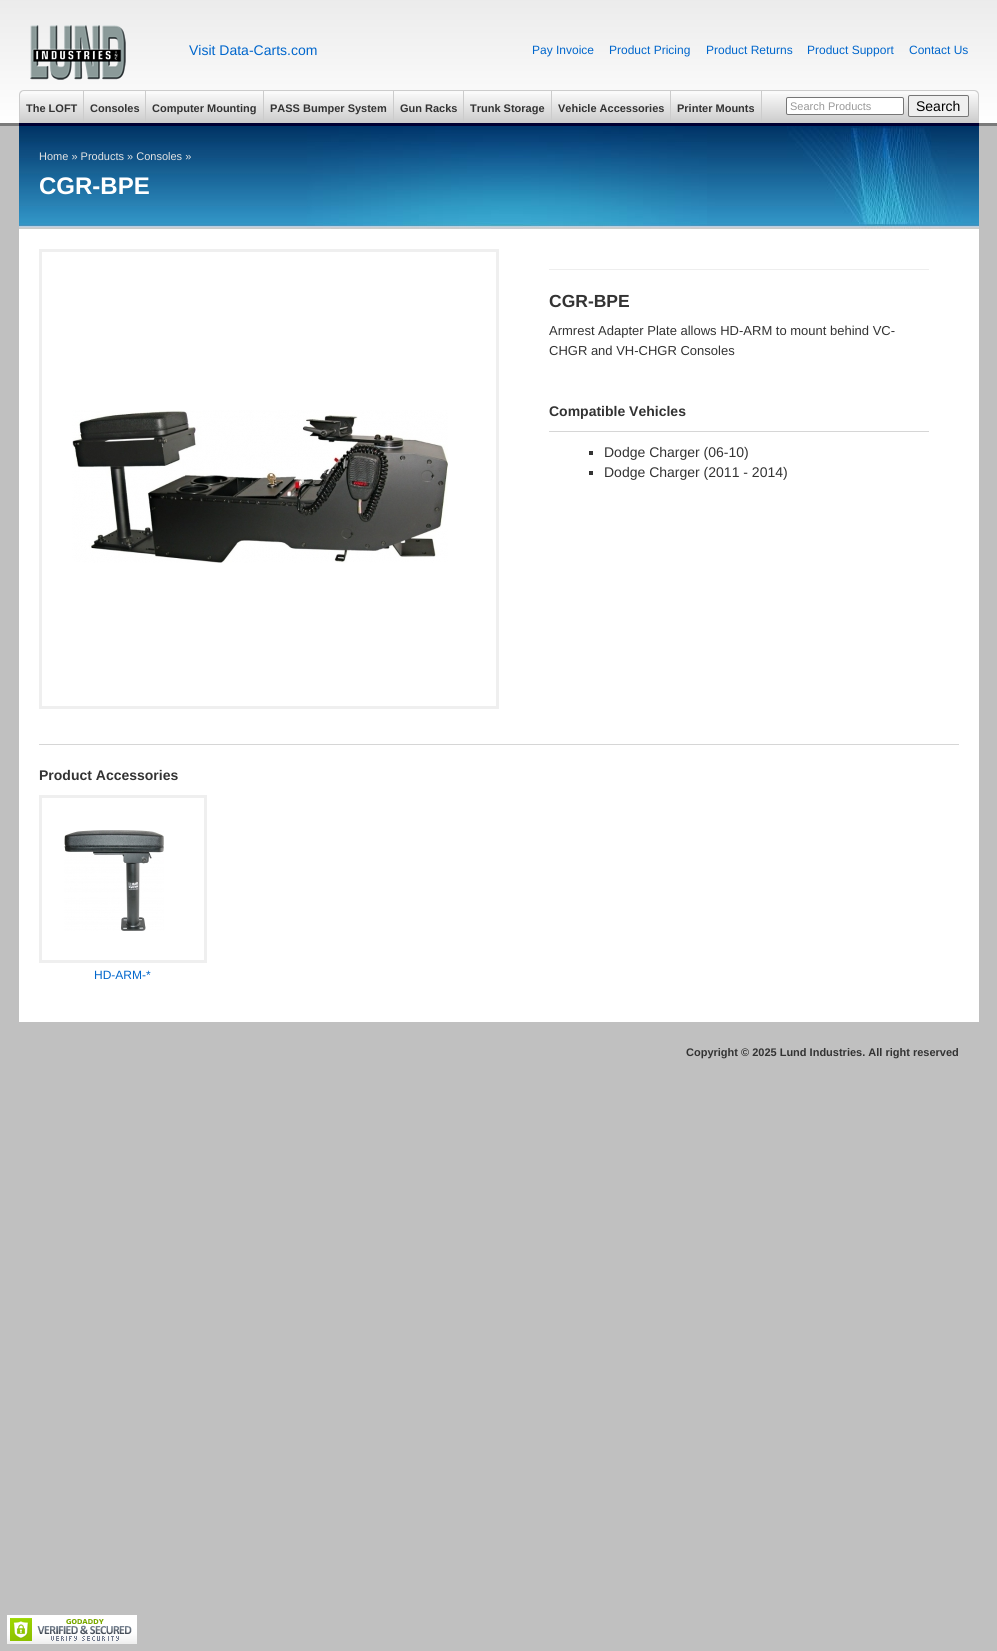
#include <cairo.h>
#include <math.h>
#include <stddef.h>

static cairo_t *ctx;

static void use_color(int r, int g, int b) {
    cairo_set_source_rgb(ctx, r / 255.0, g / 255.0, b / 255.0);
}

static void round_rect(double x, double y, double w, double h, double r) {
    cairo_new_sub_path(ctx);
    cairo_arc(ctx, x + w - r, y + h - r, r, 0, M_PI / 2);
    cairo_arc(ctx, x + r, y + h - r, r, M_PI / 2, M_PI);
    cairo_arc(ctx, x + r, y + r, r, M_PI, 1.5 * M_PI);
    cairo_arc(ctx, x + w - r, y + r, r, 1.5 * M_PI, 2 * M_PI);
    cairo_close_path(ctx);
}

static void picture(const char *path, double x, double y, double w, double h) {
    cairo_surface_t *image = cairo_image_surface_create_from_png(path);
    cairo_save(ctx);
    cairo_set_source_surface(ctx, image, x, y);
    cairo_rectangle(ctx, x, y, w, h);
    cairo_fill(ctx);
    cairo_restore(ctx);
    cairo_surface_destroy(image);
}

int main(void) {
    cairo_surface_t *surface = cairo_image_surface_create(CAIRO_FORMAT_RGB24, 997, 1651);
    ctx = cairo_create(surface);
    cairo_font_options_t *options = cairo_font_options_create();
    cairo_font_options_set_hint_metrics(options, CAIRO_HINT_METRICS_OFF);
    cairo_font_options_set_hint_style(options, CAIRO_HINT_STYLE_NONE);
    cairo_set_font_options(ctx, options);
    cairo_set_miter_limit(ctx, 4);
    use_color(192, 192, 192);
    cairo_paint(ctx);
    picture("img1.png", 0, 0, 997, 126);
    picture("img2.png", 30, 25, 96, 55);
    cairo_select_font_face(ctx, "Liberation Sans", CAIRO_FONT_SLANT_NORMAL, CAIRO_FONT_WEIGHT_NORMAL);
    cairo_set_font_size(ctx, 14);
    use_color(0, 102, 204);
    cairo_move_to(ctx, 189, 55);
    cairo_show_text(ctx, "Visit Data-Carts.com");
    cairo_set_font_size(ctx, 12);
    cairo_move_to(ctx, 532, 54);
    cairo_show_text(ctx, "Pay Invoice");
    cairo_move_to(ctx, 609, 54);
    cairo_show_text(ctx, "Product Pricing");
    cairo_move_to(ctx, 706, 54);
    cairo_show_text(ctx, "Product Returns");
    cairo_move_to(ctx, 807, 54);
    cairo_show_text(ctx, "Product Support");
    cairo_move_to(ctx, 909, 54);
    cairo_show_text(ctx, "Contact Us");
    picture("img3.png", 19, 94, 960, 29);
    use_color(204, 204, 204);
    cairo_set_fill_rule(ctx, CAIRO_FILL_RULE_EVEN_ODD);
    cairo_new_path(ctx);
    cairo_move_to(ctx, 24, 90);
    cairo_line_to(ctx, 974, 90);
    cairo_curve_to(ctx, 977, 90, 979, 92, 979, 95);
    cairo_line_to(ctx, 979, 123);
    cairo_line_to(ctx, 19, 123);
    cairo_line_to(ctx, 19, 95);
    cairo_curve_to(ctx, 19, 92, 21, 90, 24, 90);
    cairo_close_path(ctx);
    cairo_move_to(ctx, 24, 91);
    cairo_line_to(ctx, 974, 91);
    cairo_curve_to(ctx, 976, 91, 978, 93, 978, 95);
    cairo_line_to(ctx, 978, 123);
    cairo_line_to(ctx, 20, 123);
    cairo_line_to(ctx, 20, 95);
    cairo_curve_to(ctx, 20, 93, 22, 91, 24, 91);
    cairo_close_path(ctx);
    cairo_fill(ctx);
    use_color(236, 236, 236);
    cairo_rectangle(ctx, 22, 91, 1, 1);
    cairo_fill(ctx);
    use_color(204, 204, 204);
    cairo_rectangle(ctx, 83, 91, 1, 32);
    cairo_fill(ctx);
    cairo_select_font_face(ctx, "Liberation Sans", CAIRO_FONT_SLANT_NORMAL, CAIRO_FONT_WEIGHT_BOLD);
    cairo_set_font_size(ctx, 11);
    use_color(51, 51, 51);
    cairo_move_to(ctx, 26, 112);
    cairo_show_text(ctx, "The LOFT");
    use_color(204, 204, 204);
    cairo_rectangle(ctx, 145, 91, 1, 32);
    cairo_fill(ctx);
    use_color(51, 51, 51);
    cairo_move_to(ctx, 90, 112);
    cairo_show_text(ctx, "Consoles");
    use_color(204, 204, 204);
    cairo_rectangle(ctx, 263, 91, 1, 32);
    cairo_fill(ctx);
    use_color(51, 51, 51);
    cairo_move_to(ctx, 152, 112);
    cairo_show_text(ctx, "Computer Mounting");
    use_color(204, 204, 204);
    cairo_rectangle(ctx, 393, 91, 1, 32);
    cairo_fill(ctx);
    use_color(51, 51, 51);
    cairo_move_to(ctx, 270, 112);
    cairo_show_text(ctx, "PASS Bumper System");
    use_color(204, 204, 204);
    cairo_rectangle(ctx, 463, 91, 1, 32);
    cairo_fill(ctx);
    use_color(51, 51, 51);
    cairo_move_to(ctx, 400, 112);
    cairo_show_text(ctx, "Gun Racks");
    use_color(204, 204, 204);
    cairo_rectangle(ctx, 551, 91, 1, 32);
    cairo_fill(ctx);
    use_color(51, 51, 51);
    cairo_move_to(ctx, 470, 112);
    cairo_show_text(ctx, "Trunk Storage");
    use_color(204, 204, 204);
    cairo_rectangle(ctx, 670, 91, 1, 32);
    cairo_fill(ctx);
    use_color(51, 51, 51);
    cairo_move_to(ctx, 558, 112);
    cairo_show_text(ctx, "Vehicle Accessories");
    use_color(204, 204, 204);
    cairo_rectangle(ctx, 761, 91, 1, 32);
    cairo_fill(ctx);
    use_color(51, 51, 51);
    cairo_move_to(ctx, 677, 112);
    cairo_show_text(ctx, "Printer Mounts");
    use_color(255, 255, 255);
    round_rect(786.5, 97.5, 117, 17, 1.5);
    cairo_fill_preserve(ctx);
    use_color(118, 118, 118);
    cairo_set_line_width(ctx, 1);
    cairo_stroke(ctx);
    cairo_select_font_face(ctx, "Liberation Sans", CAIRO_FONT_SLANT_NORMAL, CAIRO_FONT_WEIGHT_NORMAL);
    use_color(153, 153, 153);
    cairo_move_to(ctx, 790, 110);
    cairo_show_text(ctx, "Search Products");
    use_color(239, 239, 239);
    round_rect(908.5, 95.5, 60, 21, 1.5);
    cairo_fill_preserve(ctx);
    use_color(118, 118, 118);
    cairo_stroke(ctx);
    cairo_set_font_size(ctx, 14);
    use_color(0, 0, 0);
    cairo_move_to(ctx, 916, 111);
    cairo_show_text(ctx, "Search");
    picture("img4.png", 19, 126, 960, 103);
    use_color(0, 0, 51);
    cairo_rectangle(ctx, 19, 123, 960, 3);
    cairo_fill(ctx);
    cairo_set_font_size(ctx, 11);
    use_color(227, 227, 227);
    cairo_move_to(ctx, 39, 160);
    cairo_show_text(ctx, "Home » Products » Consoles »");
    cairo_select_font_face(ctx, "Liberation Sans", CAIRO_FONT_SLANT_NORMAL, CAIRO_FONT_WEIGHT_BOLD);
    cairo_set_font_size(ctx, 24);
    use_color(255, 255, 255);
    cairo_move_to(ctx, 39, 194);
    cairo_show_text(ctx, "CGR-BPE");
    cairo_rectangle(ctx, 19, 229, 960, 793);
    cairo_fill(ctx);
    use_color(214, 214, 214);
    cairo_rectangle(ctx, 39, 744, 920, 1);
    cairo_fill(ctx);
    cairo_rectangle(ctx, 40.5, 250.5, 457, 457);
    use_color(239, 239, 239);
    cairo_set_line_width(ctx, 3);
    cairo_stroke(ctx);
    picture("img5.png", 72, 410, 376, 153);
    use_color(238, 238, 238);
    cairo_rectangle(ctx, 549, 269, 380, 1);
    cairo_fill(ctx);
    cairo_set_font_size(ctx, 17.5);
    use_color(51, 51, 51);
    cairo_move_to(ctx, 549, 307);
    cairo_show_text(ctx, "CGR-BPE");
    cairo_select_font_face(ctx, "Liberation Sans", CAIRO_FONT_SLANT_NORMAL, CAIRO_FONT_WEIGHT_NORMAL);
    cairo_set_font_size(ctx, 13);
    cairo_move_to(ctx, 549, 335);
    cairo_show_text(ctx, "Armrest Adapter Plate allows HD-ARM to mount behind VC-");
    cairo_move_to(ctx, 549, 355);
    cairo_show_text(ctx, "CHGR and VH-CHGR Consoles");
    use_color(214, 214, 214);
    cairo_rectangle(ctx, 549, 431, 380, 1);
    cairo_fill(ctx);
    cairo_select_font_face(ctx, "Liberation Sans", CAIRO_FONT_SLANT_NORMAL, CAIRO_FONT_WEIGHT_BOLD);
    cairo_set_font_size(ctx, 14);
    use_color(51, 51, 51);
    cairo_move_to(ctx, 549, 416);
    cairo_show_text(ctx, "Compatible Vehicles");
    cairo_rectangle(ctx, 589, 451, 4, 4);
    cairo_fill(ctx);
    cairo_select_font_face(ctx, "Liberation Sans", CAIRO_FONT_SLANT_NORMAL, CAIRO_FONT_WEIGHT_NORMAL);
    cairo_move_to(ctx, 604, 457);
    cairo_show_text(ctx, "Dodge Charger (06-10)");
    cairo_rectangle(ctx, 589, 471, 4, 4);
    cairo_fill(ctx);
    cairo_move_to(ctx, 604, 477);
    cairo_show_text(ctx, "Dodge Charger (2011 - 2014)");
    cairo_select_font_face(ctx, "Liberation Sans", CAIRO_FONT_SLANT_NORMAL, CAIRO_FONT_WEIGHT_BOLD);
    cairo_move_to(ctx, 39, 780);
    cairo_show_text(ctx, "Product Accessories");
    cairo_rectangle(ctx, 40.5, 796.5, 165, 165);
    use_color(239, 239, 239);
    cairo_stroke(ctx);
    picture("img6.png", 64, 830, 100, 101);
    cairo_select_font_face(ctx, "Liberation Sans", CAIRO_FONT_SLANT_NORMAL, CAIRO_FONT_WEIGHT_NORMAL);
    cairo_set_font_size(ctx, 12);
    use_color(0, 102, 204);
    cairo_move_to(ctx, 94, 979);
    cairo_show_text(ctx, "HD-ARM-*");
    cairo_select_font_face(ctx, "Liberation Sans", CAIRO_FONT_SLANT_NORMAL, CAIRO_FONT_WEIGHT_BOLD);
    cairo_set_font_size(ctx, 11);
    use_color(51, 51, 51);
    cairo_move_to(ctx, 686, 1056);
    cairo_show_text(ctx, "Copyright © 2025 Lund Industries. All right reserved");
    picture("img7.png", 7, 1615, 130, 29);
    cairo_surface_write_to_png(surface, "result.png");
    cairo_font_options_destroy(options);
    cairo_destroy(ctx);
    cairo_surface_destroy(surface);
    return 0;
}
